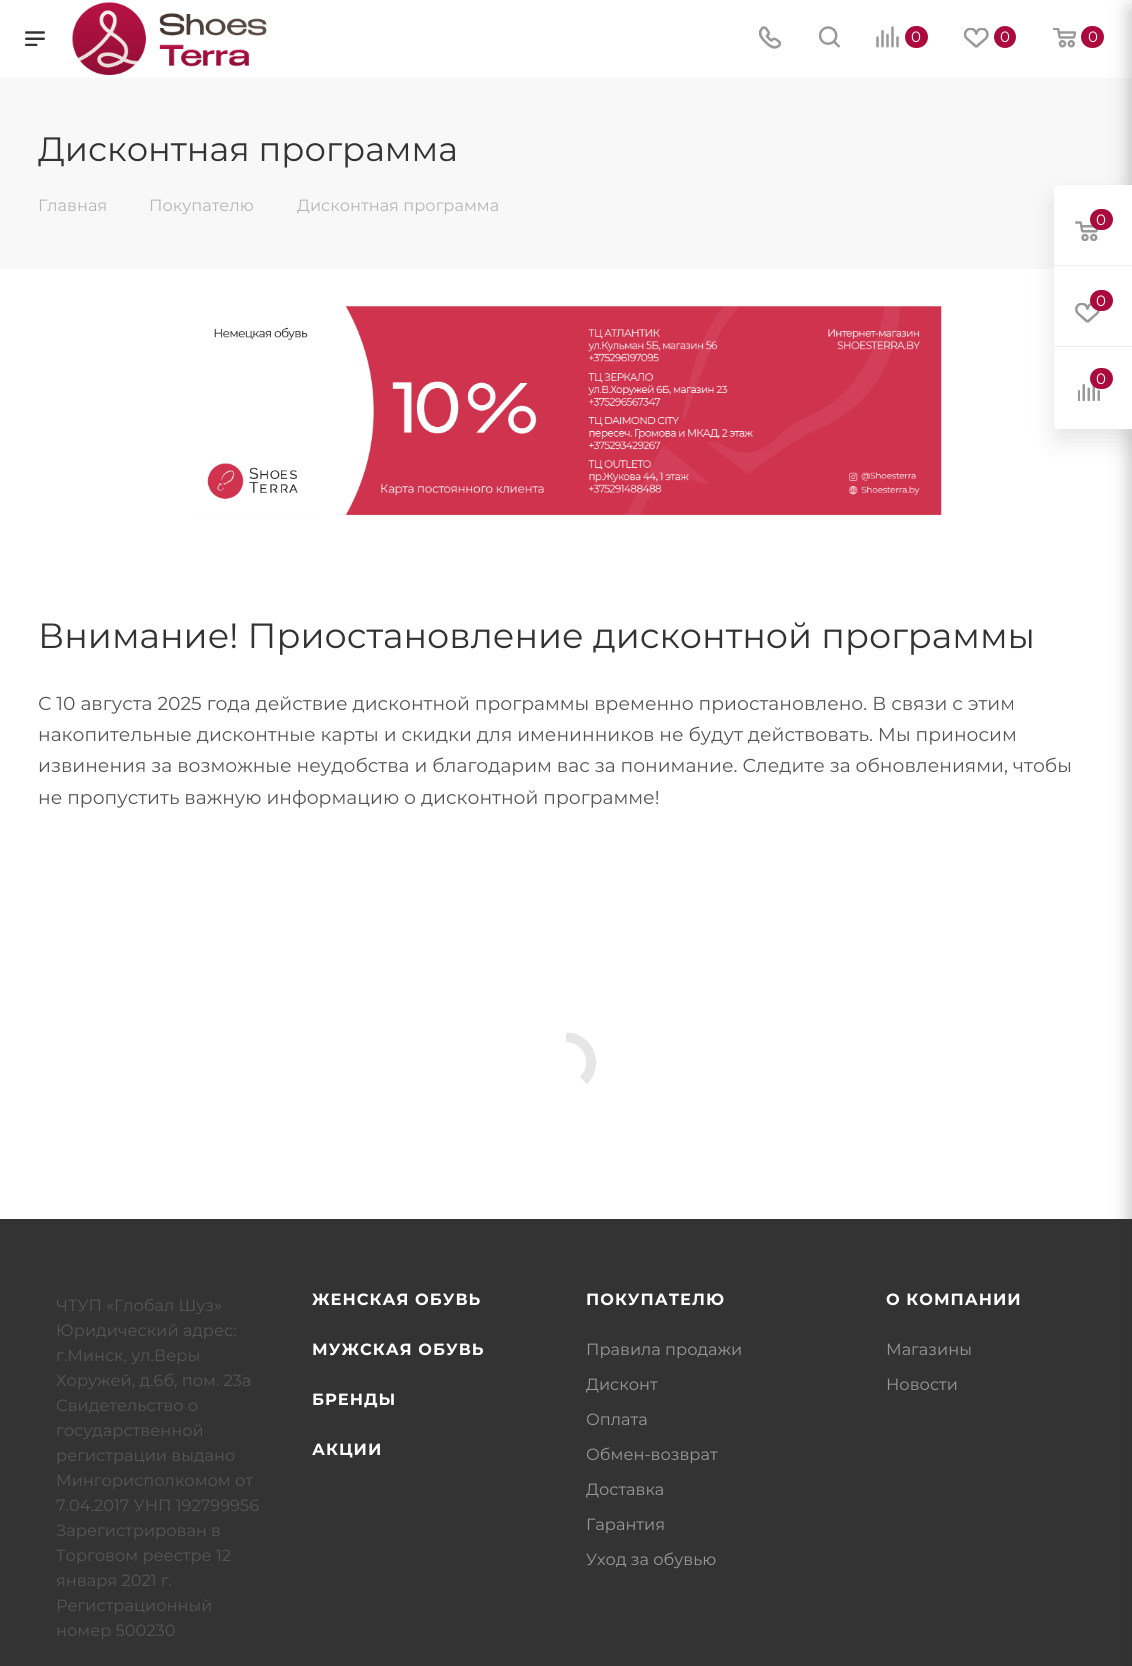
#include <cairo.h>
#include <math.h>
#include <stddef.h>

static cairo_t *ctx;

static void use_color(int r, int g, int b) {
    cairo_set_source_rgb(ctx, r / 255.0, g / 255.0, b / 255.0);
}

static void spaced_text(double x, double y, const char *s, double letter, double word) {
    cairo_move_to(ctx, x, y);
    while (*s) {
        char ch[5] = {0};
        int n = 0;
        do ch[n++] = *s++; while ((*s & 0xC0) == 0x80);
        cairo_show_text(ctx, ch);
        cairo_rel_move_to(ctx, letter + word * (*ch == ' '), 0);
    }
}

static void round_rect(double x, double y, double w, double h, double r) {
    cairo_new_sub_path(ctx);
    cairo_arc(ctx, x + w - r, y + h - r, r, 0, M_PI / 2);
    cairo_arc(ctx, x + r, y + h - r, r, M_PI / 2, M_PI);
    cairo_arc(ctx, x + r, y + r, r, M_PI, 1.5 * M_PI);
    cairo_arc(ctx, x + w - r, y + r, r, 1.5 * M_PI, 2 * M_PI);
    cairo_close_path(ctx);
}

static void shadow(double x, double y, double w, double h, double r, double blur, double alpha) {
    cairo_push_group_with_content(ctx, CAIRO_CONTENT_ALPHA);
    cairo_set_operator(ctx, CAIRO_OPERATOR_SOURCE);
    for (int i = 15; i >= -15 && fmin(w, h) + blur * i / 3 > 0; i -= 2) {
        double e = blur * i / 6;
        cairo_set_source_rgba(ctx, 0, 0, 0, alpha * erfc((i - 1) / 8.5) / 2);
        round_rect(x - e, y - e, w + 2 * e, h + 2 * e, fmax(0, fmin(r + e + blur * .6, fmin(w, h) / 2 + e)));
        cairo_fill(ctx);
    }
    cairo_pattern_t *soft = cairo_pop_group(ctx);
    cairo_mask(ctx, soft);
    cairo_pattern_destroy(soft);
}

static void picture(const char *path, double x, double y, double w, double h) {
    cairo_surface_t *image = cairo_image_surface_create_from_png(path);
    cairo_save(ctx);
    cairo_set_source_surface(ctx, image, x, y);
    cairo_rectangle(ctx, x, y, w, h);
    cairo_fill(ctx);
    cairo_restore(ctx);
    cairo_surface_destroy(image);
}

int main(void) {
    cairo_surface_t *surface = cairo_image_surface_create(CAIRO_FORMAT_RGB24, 1132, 1666);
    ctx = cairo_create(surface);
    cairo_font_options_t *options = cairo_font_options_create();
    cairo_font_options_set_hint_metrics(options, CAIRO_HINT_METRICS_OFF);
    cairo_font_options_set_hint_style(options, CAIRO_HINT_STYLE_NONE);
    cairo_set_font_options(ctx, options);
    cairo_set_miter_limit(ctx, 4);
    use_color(255, 255, 255);
    cairo_paint(ctx);
    use_color(248, 248, 248);
    cairo_rectangle(ctx, 0, 78, 1132, 191);
    cairo_fill(ctx);
    picture("img1.png", 25, 31, 20, 15);
    picture("img2.png", 72, 2, 195, 73);
    picture("img3.png", 759, 26, 22, 23);
    picture("img4.png", 819, 26, 21, 22);
    picture("img5.png", 876, 26, 23, 22);
    use_color(171, 10, 61);
    round_rect(905, 26, 23, 22, 11);
    cairo_fill(ctx);
    cairo_select_font_face(ctx, "Montserrat", CAIRO_FONT_SLANT_NORMAL, CAIRO_FONT_WEIGHT_NORMAL);
    cairo_set_font_size(ctx, 15);
    use_color(255, 255, 255);
    cairo_move_to(ctx, 911, 42);
    cairo_show_text(ctx, "0");
    picture("img6.png", 964, 28, 25, 20);
    use_color(171, 10, 61);
    cairo_arc(ctx, 1005, 37, 11, 0, 2 * M_PI);
    cairo_fill(ctx);
    use_color(255, 255, 255);
    cairo_move_to(ctx, 1000, 42);
    cairo_show_text(ctx, "0");
    picture("img7.png", 1053, 28, 23, 20);
    use_color(171, 10, 61);
    round_rect(1081, 26, 23, 22, 11);
    cairo_fill(ctx);
    use_color(255, 255, 255);
    cairo_move_to(ctx, 1088, 42);
    cairo_show_text(ctx, "0");
    cairo_save(ctx);
    cairo_rectangle(ctx, 38, 131, 1057, 38);
    cairo_clip(ctx);
    cairo_set_font_size(ctx, 33.75);
    use_color(51, 51, 51);
    cairo_move_to(ctx, 38, 161);
    cairo_show_text(ctx, "Дисконтная программа");
    cairo_restore(ctx);
    cairo_set_font_size(ctx, 16.25);
    use_color(182, 181, 181);
    cairo_move_to(ctx, 38, 211);
    cairo_show_text(ctx, "Главная");
    cairo_move_to(ctx, 149, 211);
    cairo_show_text(ctx, "Покупателю");
    cairo_move_to(ctx, 297, 211);
    cairo_show_text(ctx, "Дисконтная программа");
    picture("img8.png", 191, 306, 751, 209);
    cairo_set_font_size(ctx, 35);
    use_color(51, 51, 51);
    cairo_move_to(ctx, 38, 648);
    cairo_show_text(ctx, "Внимание! Приостановление дисконтной программы");
    cairo_set_font_size(ctx, 18.75);
    use_color(85, 85, 85);
    cairo_move_to(ctx, 38, 710);
    cairo_show_text(ctx, "С 10 августа 2025 года действие дисконтной программы временно приостановлено. В связи с этим");
    cairo_move_to(ctx, 38, 741);
    cairo_show_text(ctx, "накопительные дисконтные карты и скидки для именинников не будут действовать. Мы приносим");
    cairo_move_to(ctx, 38, 772);
    cairo_show_text(ctx, "извинения за возможные неудобства и благодарим вас за понимание. Следите за обновлениями, чтобы");
    cairo_move_to(ctx, 38, 804);
    cairo_show_text(ctx, "не пропустить важную информацию о дисконтной программе!");
    cairo_save(ctx);
    cairo_rectangle(ctx, 536, 1033, 60, 60);
    cairo_clip(ctx);
    use_color(230, 230, 230);
    cairo_new_path(ctx);
    cairo_move_to(ctx, 566, 1032);
    cairo_curve_to(ctx, 593, 1033, 606, 1065, 587, 1084);
    cairo_line_to(ctx, 580, 1077);
    cairo_curve_to(ctx, 593, 1064, 584, 1042, 566, 1042);
    cairo_close_path(ctx);
    cairo_fill(ctx);
    cairo_restore(ctx);
    use_color(51, 51, 51);
    cairo_rectangle(ctx, 0, 1219, 1132, 447);
    cairo_fill(ctx);
    use_color(44, 44, 44);
    shadow(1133, 8, 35, 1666, 2.5, 11, 0.4);
    use_color(0, 0, 0);
    shadow(1054, 198, 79, 243, 5, 12.5, 0.1);
    use_color(255, 255, 255);
    cairo_new_path(ctx);
    cairo_move_to(ctx, 1059, 185);
    cairo_line_to(ctx, 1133, 185);
    cairo_line_to(ctx, 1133, 429);
    cairo_line_to(ctx, 1059, 429);
    cairo_curve_to(ctx, 1056, 429, 1054, 427, 1054, 424);
    cairo_line_to(ctx, 1054, 190);
    cairo_curve_to(ctx, 1054, 187, 1056, 185, 1059, 185);
    cairo_close_path(ctx);
    cairo_fill(ctx);
    use_color(236, 236, 236);
    cairo_rectangle(ctx, 1054, 265, 78, 1);
    cairo_fill(ctx);
    picture("img9.png", 1075, 221, 24, 20);
    use_color(171, 10, 61);
    round_rect(1090, 209, 23, 21, 10.5);
    cairo_fill(ctx);
    cairo_set_font_size(ctx, 15);
    use_color(255, 255, 255);
    cairo_move_to(ctx, 1096, 225);
    cairo_show_text(ctx, "0");
    use_color(236, 236, 236);
    cairo_rectangle(ctx, 1054, 346, 78, 1);
    cairo_fill(ctx);
    picture("img10.png", 1075, 303, 25, 20);
    use_color(171, 10, 61);
    round_rect(1090, 290, 23, 21, 10.5);
    cairo_fill(ctx);
    use_color(255, 255, 255);
    cairo_move_to(ctx, 1096, 306);
    cairo_show_text(ctx, "0");
    picture("img11.png", 1078, 383, 22, 18);
    use_color(171, 10, 61);
    round_rect(1090, 368, 23, 21, 10.5);
    cairo_fill(ctx);
    use_color(255, 255, 255);
    cairo_move_to(ctx, 1096, 384);
    cairo_show_text(ctx, "0");
    cairo_set_font_size(ctx, 16.25);
    use_color(85, 85, 85);
    cairo_move_to(ctx, 56, 1311);
    cairo_show_text(ctx, "ЧТУП «Глобал Шуз»");
    cairo_move_to(ctx, 56, 1336);
    cairo_show_text(ctx, "Юридический адрес:");
    cairo_move_to(ctx, 56, 1361);
    cairo_show_text(ctx, "г.Минск, ул.Веры");
    cairo_move_to(ctx, 56, 1386);
    cairo_show_text(ctx, "Хоружей, д.6б, пом. 23а");
    cairo_move_to(ctx, 56, 1411);
    cairo_show_text(ctx, "Свидетельство о");
    cairo_move_to(ctx, 56, 1436);
    cairo_show_text(ctx, "государственной");
    cairo_move_to(ctx, 56, 1461);
    cairo_show_text(ctx, "регистрации выдано");
    cairo_move_to(ctx, 56, 1486);
    cairo_show_text(ctx, "Мингорисполкомом от");
    cairo_move_to(ctx, 56, 1511);
    cairo_show_text(ctx, "7.04.2017 УНП 192799956");
    cairo_move_to(ctx, 56, 1536);
    cairo_show_text(ctx, "Зарегистрирован в");
    cairo_move_to(ctx, 56, 1561);
    cairo_show_text(ctx, "Торговом реестре 12");
    cairo_move_to(ctx, 56, 1586);
    cairo_show_text(ctx, "января 2021 г.");
    cairo_move_to(ctx, 56, 1611);
    cairo_show_text(ctx, "Регистрационный");
    cairo_move_to(ctx, 56, 1636);
    cairo_show_text(ctx, "номер 500230");
    cairo_select_font_face(ctx, "Montserrat", CAIRO_FONT_SLANT_NORMAL, CAIRO_FONT_WEIGHT_BOLD);
    use_color(255, 255, 255);
    spaced_text(312, 1305, "ЖЕНСКАЯ ОБУВЬ", 1, 0);
    spaced_text(312, 1355, "МУЖСКАЯ ОБУВЬ", 1, 0);
    spaced_text(312, 1405, "БРЕНДЫ", 1, 0);
    spaced_text(312, 1455, "АКЦИИ", 1, 0);
    spaced_text(586, 1305, "ПОКУПАТЕЛЮ", 1, 0);
    cairo_select_font_face(ctx, "Montserrat", CAIRO_FONT_SLANT_NORMAL, CAIRO_FONT_WEIGHT_NORMAL);
    use_color(153, 153, 153);
    cairo_move_to(ctx, 586, 1355);
    cairo_show_text(ctx, "Правила продажи");
    cairo_move_to(ctx, 586, 1390);
    cairo_show_text(ctx, "Дисконт");
    cairo_move_to(ctx, 586, 1425);
    cairo_show_text(ctx, "Оплата");
    cairo_move_to(ctx, 586, 1460);
    cairo_show_text(ctx, "Обмен-возврат");
    cairo_move_to(ctx, 586, 1495);
    cairo_show_text(ctx, "Доставка");
    cairo_move_to(ctx, 586, 1530);
    cairo_show_text(ctx, "Гарантия");
    cairo_move_to(ctx, 586, 1565);
    cairo_show_text(ctx, "Уход за обувью");
    cairo_select_font_face(ctx, "Montserrat", CAIRO_FONT_SLANT_NORMAL, CAIRO_FONT_WEIGHT_BOLD);
    use_color(255, 255, 255);
    spaced_text(886, 1305, "О КОМПАНИИ", 1, 0);
    cairo_select_font_face(ctx, "Montserrat", CAIRO_FONT_SLANT_NORMAL, CAIRO_FONT_WEIGHT_NORMAL);
    use_color(153, 153, 153);
    cairo_move_to(ctx, 886, 1355);
    cairo_show_text(ctx, "Магазины");
    cairo_move_to(ctx, 886, 1390);
    cairo_show_text(ctx, "Новости");
    cairo_surface_write_to_png(surface, "result.png");
    cairo_font_options_destroy(options);
    cairo_destroy(ctx);
    cairo_surface_destroy(surface);
    return 0;
}
